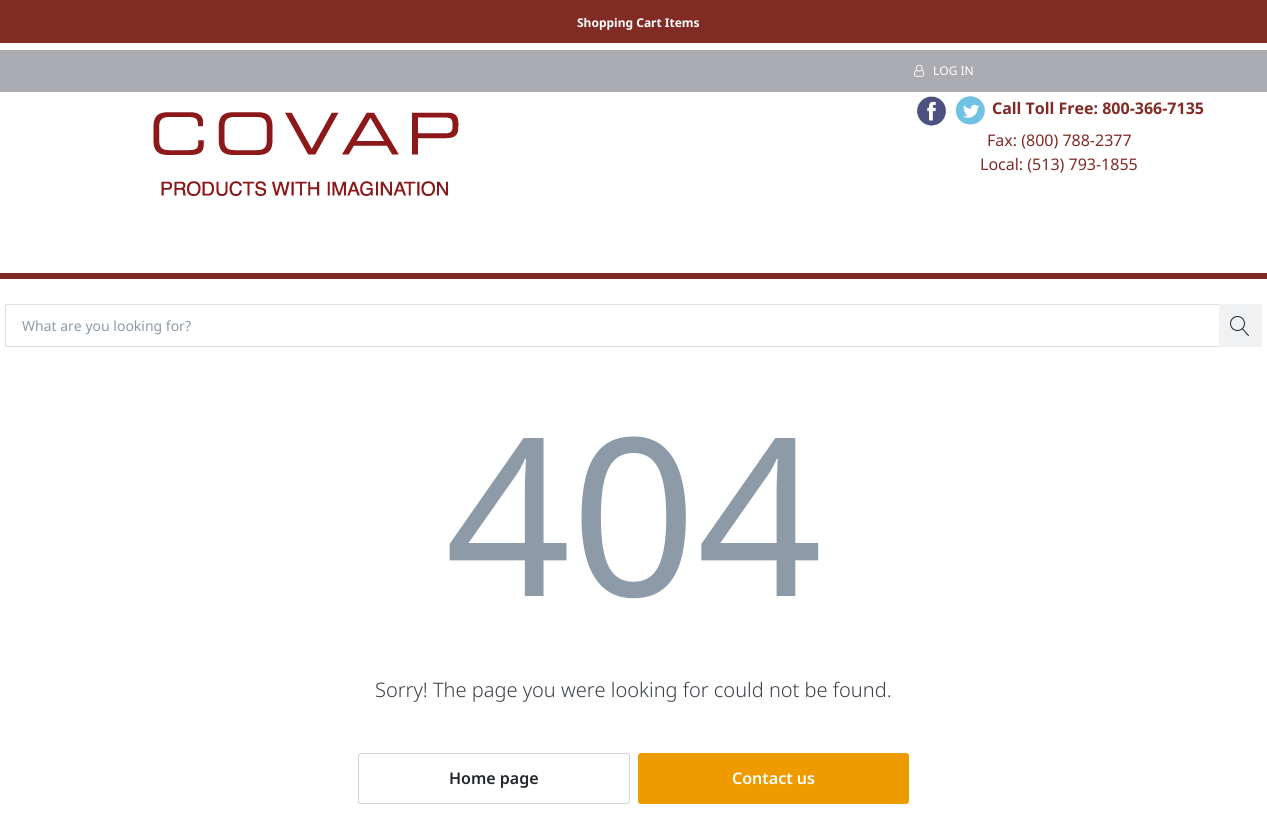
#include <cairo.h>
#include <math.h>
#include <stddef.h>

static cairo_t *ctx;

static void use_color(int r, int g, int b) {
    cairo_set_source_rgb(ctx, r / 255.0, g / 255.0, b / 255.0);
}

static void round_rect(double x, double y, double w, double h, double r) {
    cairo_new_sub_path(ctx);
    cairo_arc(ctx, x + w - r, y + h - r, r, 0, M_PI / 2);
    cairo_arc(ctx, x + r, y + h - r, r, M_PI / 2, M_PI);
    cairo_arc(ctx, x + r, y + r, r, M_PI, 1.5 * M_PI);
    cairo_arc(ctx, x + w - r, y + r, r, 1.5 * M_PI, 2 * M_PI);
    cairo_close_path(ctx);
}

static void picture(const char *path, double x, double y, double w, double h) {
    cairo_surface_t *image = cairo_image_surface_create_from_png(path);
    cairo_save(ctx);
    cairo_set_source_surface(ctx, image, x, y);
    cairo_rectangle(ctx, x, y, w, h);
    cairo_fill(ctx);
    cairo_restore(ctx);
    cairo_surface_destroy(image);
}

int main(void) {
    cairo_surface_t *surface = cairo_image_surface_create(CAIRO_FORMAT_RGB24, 1267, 815);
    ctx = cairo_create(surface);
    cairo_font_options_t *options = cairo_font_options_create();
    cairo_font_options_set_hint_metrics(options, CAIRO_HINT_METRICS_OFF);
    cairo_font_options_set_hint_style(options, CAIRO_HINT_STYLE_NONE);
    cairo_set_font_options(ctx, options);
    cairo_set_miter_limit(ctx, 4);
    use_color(255, 255, 255);
    cairo_paint(ctx);
    use_color(129, 43, 37);
    cairo_rectangle(ctx, 0, 273, 1267, 6);
    cairo_fill(ctx);
    cairo_rectangle(ctx, 0, 0, 1267, 43);
    cairo_fill(ctx);
    cairo_select_font_face(ctx, "Noto Sans", CAIRO_FONT_SLANT_NORMAL, CAIRO_FONT_WEIGHT_BOLD);
    cairo_set_font_size(ctx, 12);
    use_color(255, 255, 255);
    cairo_move_to(ctx, 577, 27);
    cairo_show_text(ctx, "Shopping Cart Items");
    picture("img1.png", 153, 112, 306, 84);
    picture("img2.png", 917, 96, 29, 30);
    picture("img3.png", 955, 96, 30, 29);
    cairo_set_font_size(ctx, 16);
    use_color(129, 43, 37);
    cairo_move_to(ctx, 992, 114);
    cairo_show_text(ctx, "Call Toll Free: 800-366-7135");
    cairo_select_font_face(ctx, "Noto Sans", CAIRO_FONT_SLANT_NORMAL, CAIRO_FONT_WEIGHT_NORMAL);
    cairo_move_to(ctx, 987, 146);
    cairo_show_text(ctx, "Fax: (800) 788-2377");
    cairo_move_to(ctx, 980, 170);
    cairo_show_text(ctx, "Local: (513) 793-1855");
    use_color(171, 172, 178);
    cairo_rectangle(ctx, 0, 50, 1267, 42);
    cairo_fill(ctx);
    picture("img4.png", 914, 64, 11, 13);
    cairo_set_font_size(ctx, 12);
    use_color(255, 255, 255);
    cairo_move_to(ctx, 933, 75);
    cairo_show_text(ctx, "LOG IN");
    round_rect(5.5, 304.5, 1256, 42, 1.5);
    use_color(224, 224, 224);
    cairo_set_line_width(ctx, 1);
    cairo_stroke(ctx);
    cairo_set_font_size(ctx, 14);
    use_color(141, 155, 169);
    cairo_move_to(ctx, 22, 331);
    cairo_show_text(ctx, "What are you looking for?");
    use_color(239, 241, 243);
    cairo_new_path(ctx);
    cairo_move_to(ctx, 1219, 305);
    cairo_line_to(ctx, 1260, 305);
    cairo_curve_to(ctx, 1260.5, 305, 1261, 305.5, 1261, 306);
    cairo_line_to(ctx, 1261, 345);
    cairo_curve_to(ctx, 1261, 345.5, 1260.5, 346, 1260, 346);
    cairo_line_to(ctx, 1219, 346);
    cairo_close_path(ctx);
    cairo_fill(ctx);
    cairo_rectangle(ctx, 1219, 304, 42, 1);
    cairo_fill(ctx);
    cairo_rectangle(ctx, 1261, 305, 1, 41);
    cairo_fill(ctx);
    cairo_rectangle(ctx, 1219, 346, 42, 1);
    cairo_fill(ctx);
    picture("img5.png", 1230, 316, 19, 20);
    cairo_set_font_size(ctx, 220);
    use_color(141, 155, 169);
    cairo_move_to(ctx, 445, 596);
    cairo_show_text(ctx, "404");
    cairo_select_font_face(ctx, "Noto Sans Light", CAIRO_FONT_SLANT_NORMAL, CAIRO_FONT_WEIGHT_NORMAL);
    cairo_set_font_size(ctx, 20);
    use_color(57, 63, 70);
    cairo_move_to(ctx, 375, 697);
    cairo_show_text(ctx, "Sorry! The page you were looking for could not be found.");
    round_rect(358.5, 753.5, 271, 50, 2.5);
    use_color(206, 212, 218);
    cairo_stroke(ctx);
    cairo_select_font_face(ctx, "Noto Sans SemiBold", CAIRO_FONT_SLANT_NORMAL, CAIRO_FONT_WEIGHT_NORMAL);
    cairo_set_font_size(ctx, 16);
    use_color(34, 38, 42);
    cairo_move_to(ctx, 449, 784);
    cairo_show_text(ctx, "Home page");
    use_color(238, 155, 0);
    round_rect(638.5, 753.5, 270, 50, 2.5);
    cairo_fill_preserve(ctx);
    cairo_stroke(ctx);
    use_color(255, 255, 255);
    cairo_move_to(ctx, 732, 784);
    cairo_show_text(ctx, "Contact us");
    cairo_surface_write_to_png(surface, "result.png");
    cairo_font_options_destroy(options);
    cairo_destroy(ctx);
    cairo_surface_destroy(surface);
    return 0;
}
